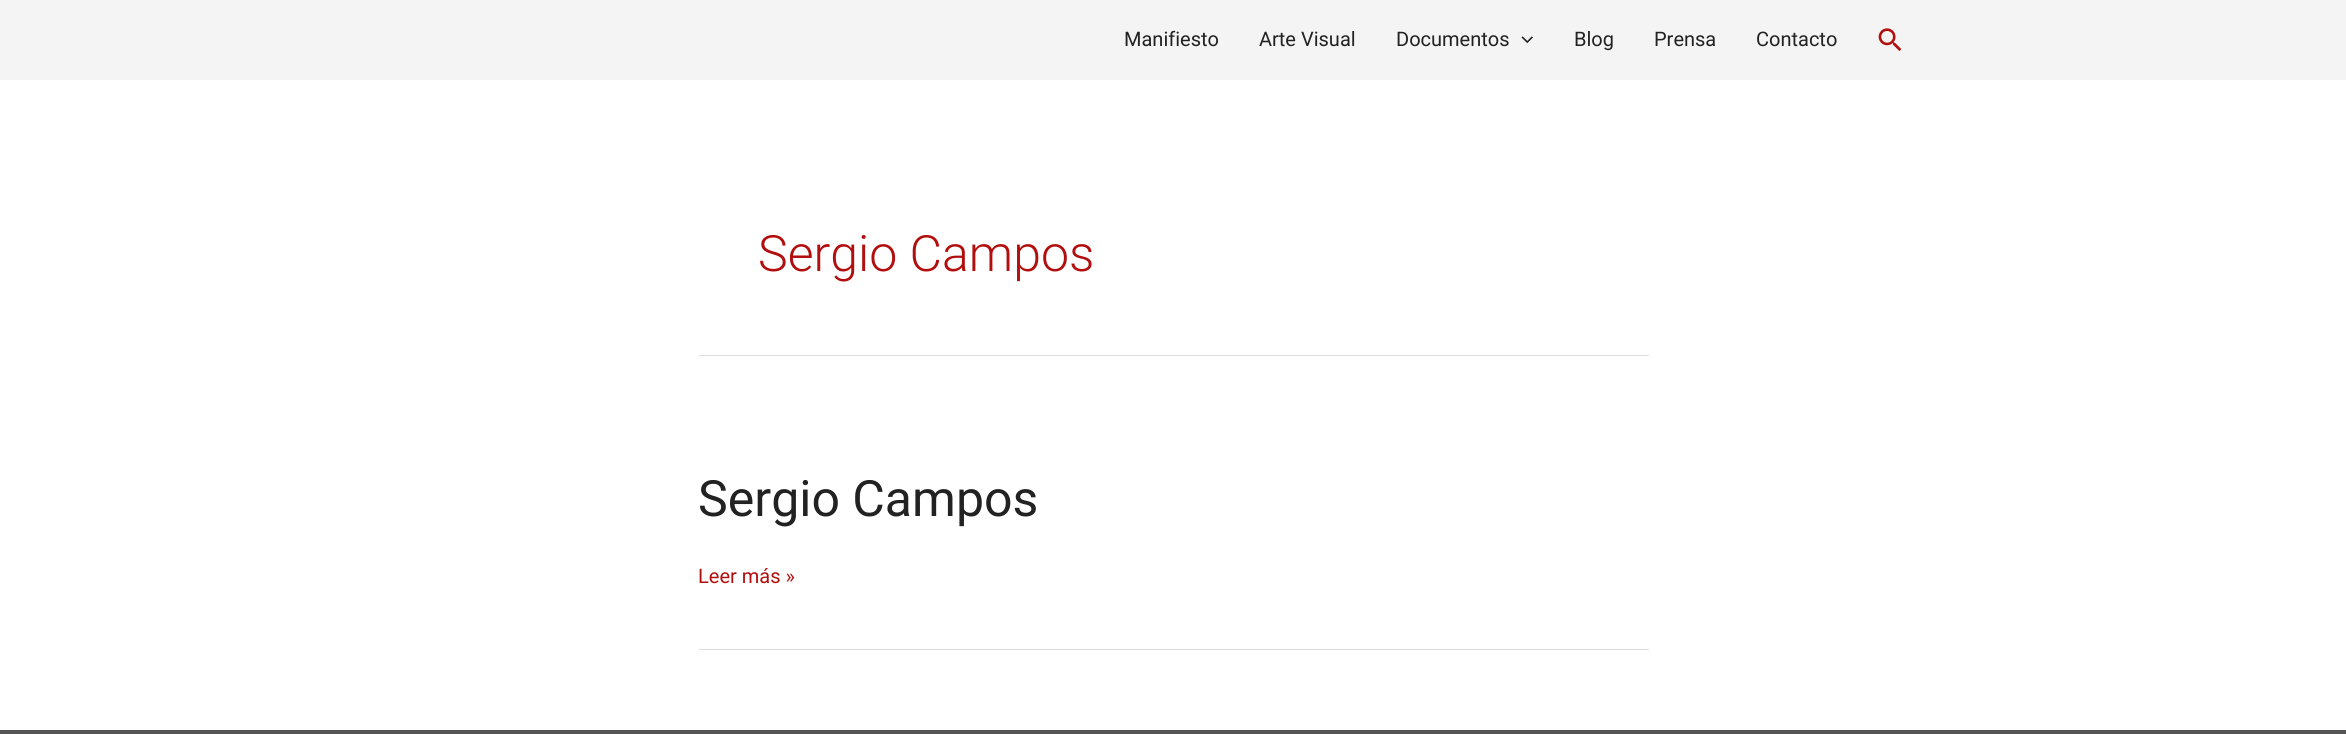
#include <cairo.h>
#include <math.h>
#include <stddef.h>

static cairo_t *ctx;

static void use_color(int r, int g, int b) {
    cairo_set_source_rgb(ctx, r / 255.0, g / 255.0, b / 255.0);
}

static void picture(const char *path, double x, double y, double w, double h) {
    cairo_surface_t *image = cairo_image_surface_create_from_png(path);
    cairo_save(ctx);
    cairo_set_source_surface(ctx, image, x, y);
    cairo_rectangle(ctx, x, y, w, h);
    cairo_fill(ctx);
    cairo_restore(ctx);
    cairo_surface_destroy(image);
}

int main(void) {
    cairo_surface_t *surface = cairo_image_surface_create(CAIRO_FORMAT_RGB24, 2346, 734);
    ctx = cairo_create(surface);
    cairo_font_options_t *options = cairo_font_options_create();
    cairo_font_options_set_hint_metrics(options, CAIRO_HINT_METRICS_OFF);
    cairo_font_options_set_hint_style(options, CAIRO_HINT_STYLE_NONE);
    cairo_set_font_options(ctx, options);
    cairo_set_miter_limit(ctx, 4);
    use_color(255, 255, 255);
    cairo_paint(ctx);
    use_color(244, 244, 244);
    cairo_rectangle(ctx, 0, 0, 2346, 80);
    cairo_fill(ctx);
    cairo_select_font_face(ctx, "Roboto", CAIRO_FONT_SLANT_NORMAL, CAIRO_FONT_WEIGHT_NORMAL);
    cairo_set_font_size(ctx, 20);
    use_color(34, 34, 34);
    cairo_move_to(ctx, 1124, 46);
    cairo_show_text(ctx, "Manifiesto");
    cairo_move_to(ctx, 1259, 46);
    cairo_show_text(ctx, "Arte Visual");
    cairo_move_to(ctx, 1396, 46);
    cairo_show_text(ctx, "Documentos");
    picture("img1.png", 1521, 36, 12, 8);
    cairo_move_to(ctx, 1574, 46);
    cairo_show_text(ctx, "Blog");
    cairo_move_to(ctx, 1654, 46);
    cairo_show_text(ctx, "Prensa");
    cairo_move_to(ctx, 1756, 46);
    cairo_show_text(ctx, "Contacto");
    picture("img2.png", 1878, 28, 23, 23);
    use_color(221, 221, 221);
    cairo_rectangle(ctx, 699, 355, 950, 1);
    cairo_fill(ctx);
    cairo_select_font_face(ctx, "Roboto Light", CAIRO_FONT_SLANT_NORMAL, CAIRO_FONT_WEIGHT_NORMAL);
    cairo_set_font_size(ctx, 50);
    use_color(178, 14, 14);
    cairo_move_to(ctx, 758, 271);
    cairo_show_text(ctx, "Sergio Campos");
    use_color(221, 221, 221);
    cairo_rectangle(ctx, 699, 649, 950, 1);
    cairo_fill(ctx);
    cairo_select_font_face(ctx, "Roboto", CAIRO_FONT_SLANT_NORMAL, CAIRO_FONT_WEIGHT_NORMAL);
    use_color(34, 34, 34);
    cairo_move_to(ctx, 698, 516);
    cairo_show_text(ctx, "Sergio Campos");
    cairo_set_font_size(ctx, 20);
    use_color(178, 14, 14);
    cairo_move_to(ctx, 698, 583);
    cairo_show_text(ctx, "Leer más »");
    use_color(85, 85, 85);
    cairo_rectangle(ctx, 0, 730, 2346, 4);
    cairo_fill(ctx);
    cairo_surface_write_to_png(surface, "result.png");
    cairo_font_options_destroy(options);
    cairo_destroy(ctx);
    cairo_surface_destroy(surface);
    return 0;
}
